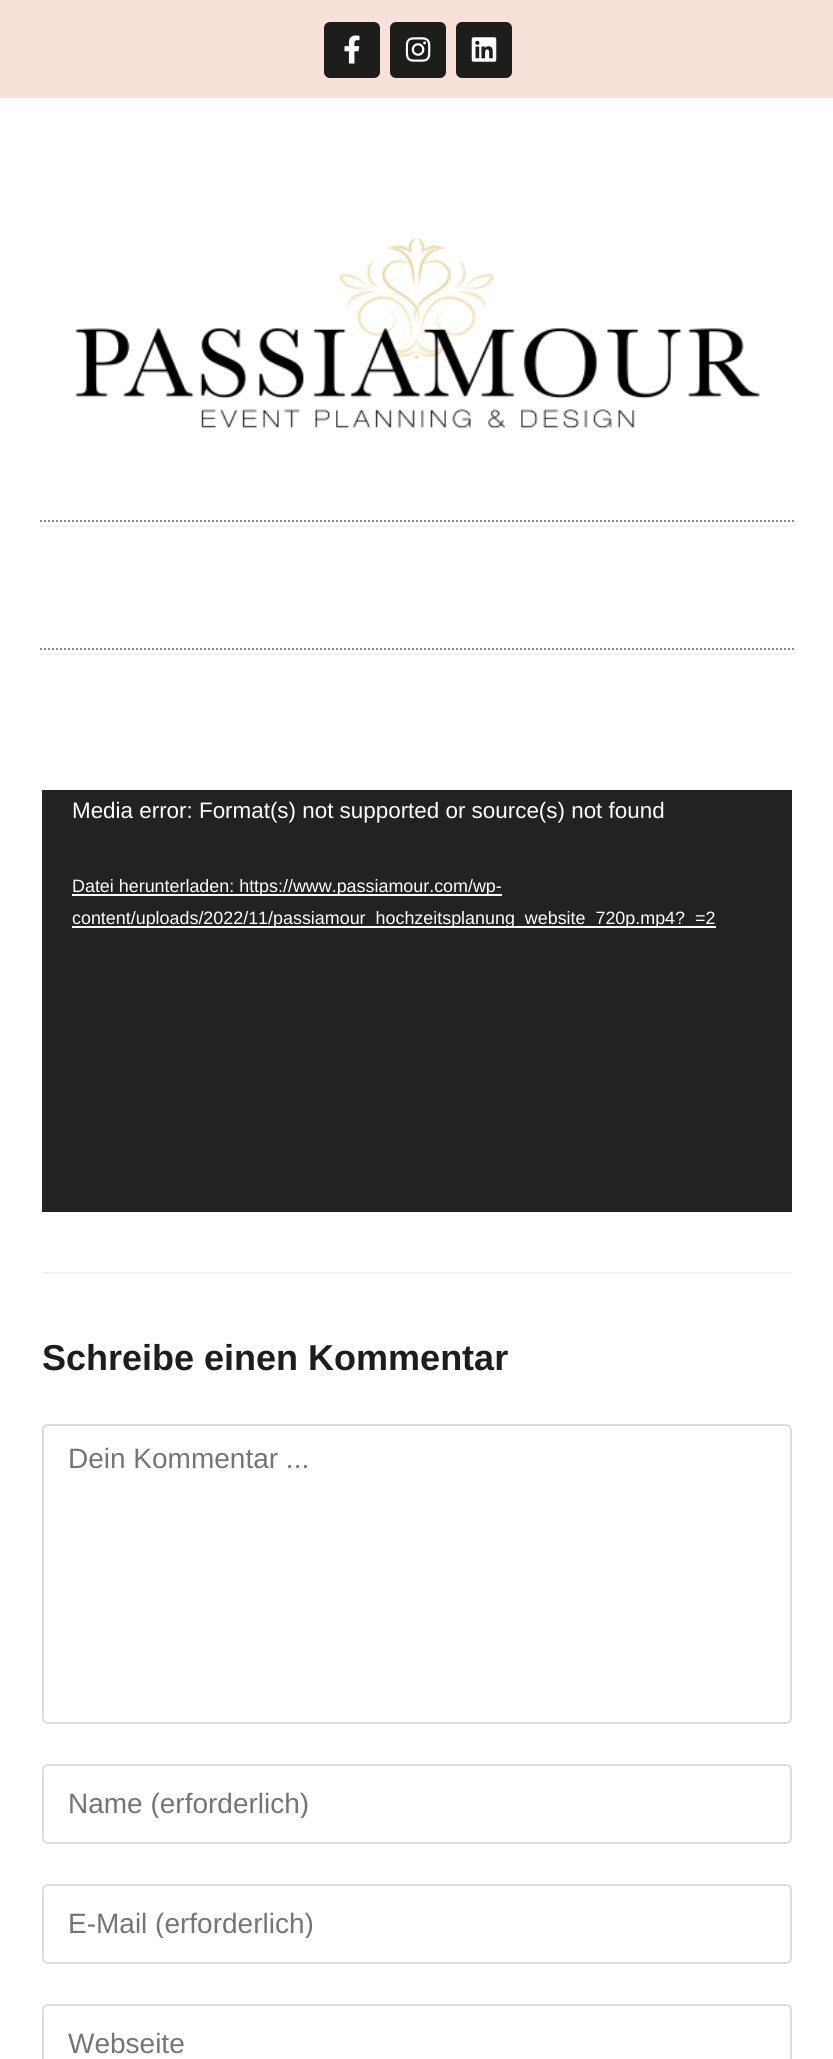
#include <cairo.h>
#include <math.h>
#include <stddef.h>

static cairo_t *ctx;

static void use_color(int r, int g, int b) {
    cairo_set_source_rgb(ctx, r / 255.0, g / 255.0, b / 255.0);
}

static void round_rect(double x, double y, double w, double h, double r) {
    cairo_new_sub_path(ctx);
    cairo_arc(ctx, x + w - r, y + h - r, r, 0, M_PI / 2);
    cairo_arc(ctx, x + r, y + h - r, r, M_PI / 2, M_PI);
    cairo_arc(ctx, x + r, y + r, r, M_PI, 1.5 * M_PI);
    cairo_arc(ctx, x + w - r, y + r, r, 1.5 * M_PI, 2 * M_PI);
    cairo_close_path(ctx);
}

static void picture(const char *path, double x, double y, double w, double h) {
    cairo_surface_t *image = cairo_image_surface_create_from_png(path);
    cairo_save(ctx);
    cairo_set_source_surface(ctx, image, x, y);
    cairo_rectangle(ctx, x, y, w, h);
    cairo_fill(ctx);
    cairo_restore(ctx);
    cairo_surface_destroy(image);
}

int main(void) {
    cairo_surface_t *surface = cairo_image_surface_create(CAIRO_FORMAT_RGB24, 833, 2059);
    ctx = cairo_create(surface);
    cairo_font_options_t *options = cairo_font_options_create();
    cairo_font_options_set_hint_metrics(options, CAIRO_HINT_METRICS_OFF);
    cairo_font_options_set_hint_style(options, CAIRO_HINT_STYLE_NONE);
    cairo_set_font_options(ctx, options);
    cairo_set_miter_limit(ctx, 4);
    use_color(255, 255, 255);
    cairo_paint(ctx);
    use_color(248, 225, 216);
    cairo_rectangle(ctx, 0, 0, 833, 98);
    cairo_fill(ctx);
    use_color(29, 29, 27);
    round_rect(324, 22, 56, 56, 6);
    cairo_fill(ctx);
    picture("img1.png", 344, 35, 16, 29);
    round_rect(390, 22, 56, 56, 6);
    cairo_fill(ctx);
    picture("img2.png", 405, 37, 26, 25);
    round_rect(456, 22, 56, 56, 6);
    cairo_fill(ctx);
    picture("img3.png", 471, 37, 26, 25);
    picture("img4.png", 75, 237, 685, 192);
    cairo_new_path(ctx);
    cairo_move_to(ctx, 40, 521);
    cairo_line_to(ctx, 794, 521);
    use_color(142, 142, 142);
    cairo_set_dash(ctx, (double[]){2, 2}, 2, 0);
    cairo_stroke(ctx);
    cairo_new_path(ctx);
    cairo_move_to(ctx, 40, 649);
    cairo_line_to(ctx, 794, 649);
    cairo_stroke(ctx);
    use_color(34, 34, 34);
    cairo_rectangle(ctx, 42, 790, 750, 422);
    cairo_fill(ctx);
    cairo_select_font_face(ctx, "Liberation Sans", CAIRO_FONT_SLANT_NORMAL, CAIRO_FONT_WEIGHT_NORMAL);
    cairo_set_font_size(ctx, 22.4);
    use_color(255, 255, 255);
    cairo_move_to(ctx, 72, 818);
    cairo_show_text(ctx, "Media error: Format(s) not supported or source(s) not found");
    cairo_rectangle(ctx, 72, 894, 430, 2);
    cairo_fill(ctx);
    cairo_set_font_size(ctx, 17.9);
    cairo_move_to(ctx, 72, 892);
    cairo_show_text(ctx, "Datei herunterladen: https://www.passiamour.com/wp-");
    cairo_rectangle(ctx, 72, 926, 644, 2);
    cairo_fill(ctx);
    cairo_move_to(ctx, 72, 924);
    cairo_show_text(ctx, "content/uploads/2022/11/passiamour_hochzeitsplanung_website_720p.mp4?_=2");
    use_color(241, 241, 241);
    cairo_rectangle(ctx, 42, 1272, 750, 2);
    cairo_fill(ctx);
    cairo_select_font_face(ctx, "Liberation Sans", CAIRO_FONT_SLANT_NORMAL, CAIRO_FONT_WEIGHT_BOLD);
    cairo_set_font_size(ctx, 36);
    use_color(29, 29, 27);
    cairo_move_to(ctx, 42, 1370);
    cairo_show_text(ctx, "Schreibe einen Kommentar");
    round_rect(43, 1425, 748, 298, 5);
    use_color(221, 221, 221);
    cairo_set_dash(ctx, NULL, 0, 0);
    cairo_stroke(ctx);
    cairo_select_font_face(ctx, "Liberation Sans", CAIRO_FONT_SLANT_NORMAL, CAIRO_FONT_WEIGHT_NORMAL);
    cairo_set_font_size(ctx, 28);
    use_color(117, 117, 117);
    cairo_move_to(ctx, 68, 1468);
    cairo_show_text(ctx, "Dein Kommentar ...");
    round_rect(43, 1765, 748, 78, 5);
    use_color(221, 221, 221);
    cairo_stroke(ctx);
    cairo_save(ctx);
    cairo_rectangle(ctx, 68, 1786, 698, 32);
    cairo_clip(ctx);
    use_color(117, 117, 117);
    cairo_move_to(ctx, 68, 1813);
    cairo_show_text(ctx, "Name (erforderlich)");
    cairo_restore(ctx);
    round_rect(43, 1885, 748, 78, 5);
    cairo_stroke(ctx);
    cairo_save(ctx);
    cairo_rectangle(ctx, 68, 1906, 698, 32);
    cairo_clip(ctx);
    use_color(117, 117, 117);
    cairo_move_to(ctx, 68, 1933);
    cairo_show_text(ctx, "E-Mail (erforderlich)");
    cairo_restore(ctx);
    round_rect(43, 2005, 748, 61, 5);
    cairo_stroke(ctx);
    use_color(117, 117, 117);
    cairo_move_to(ctx, 68, 2053);
    cairo_show_text(ctx, "Webseite");
    cairo_surface_write_to_png(surface, "result.png");
    cairo_font_options_destroy(options);
    cairo_destroy(ctx);
    cairo_surface_destroy(surface);
    return 0;
}
